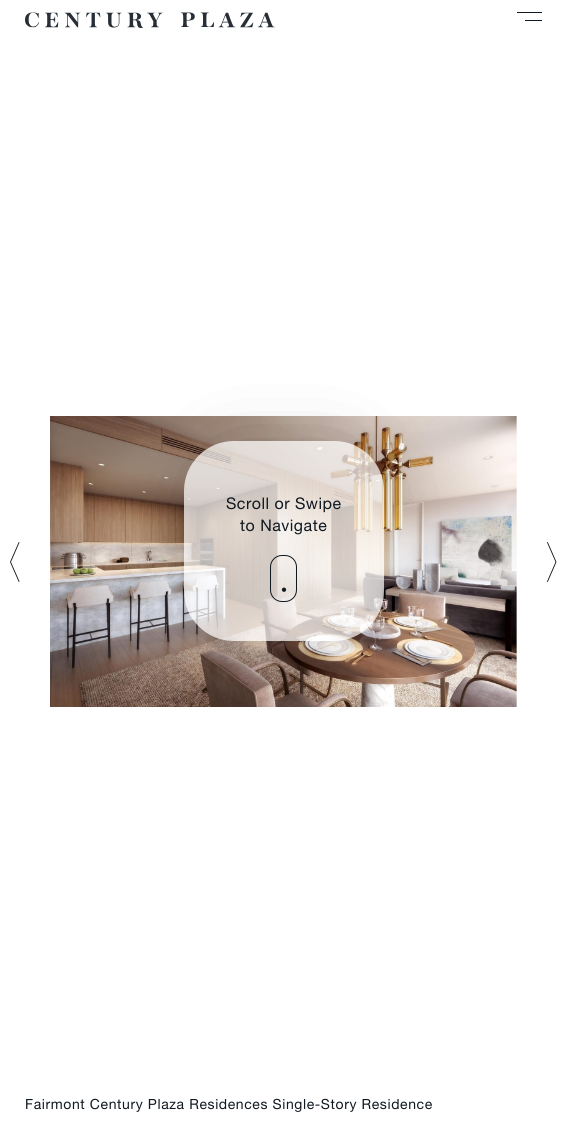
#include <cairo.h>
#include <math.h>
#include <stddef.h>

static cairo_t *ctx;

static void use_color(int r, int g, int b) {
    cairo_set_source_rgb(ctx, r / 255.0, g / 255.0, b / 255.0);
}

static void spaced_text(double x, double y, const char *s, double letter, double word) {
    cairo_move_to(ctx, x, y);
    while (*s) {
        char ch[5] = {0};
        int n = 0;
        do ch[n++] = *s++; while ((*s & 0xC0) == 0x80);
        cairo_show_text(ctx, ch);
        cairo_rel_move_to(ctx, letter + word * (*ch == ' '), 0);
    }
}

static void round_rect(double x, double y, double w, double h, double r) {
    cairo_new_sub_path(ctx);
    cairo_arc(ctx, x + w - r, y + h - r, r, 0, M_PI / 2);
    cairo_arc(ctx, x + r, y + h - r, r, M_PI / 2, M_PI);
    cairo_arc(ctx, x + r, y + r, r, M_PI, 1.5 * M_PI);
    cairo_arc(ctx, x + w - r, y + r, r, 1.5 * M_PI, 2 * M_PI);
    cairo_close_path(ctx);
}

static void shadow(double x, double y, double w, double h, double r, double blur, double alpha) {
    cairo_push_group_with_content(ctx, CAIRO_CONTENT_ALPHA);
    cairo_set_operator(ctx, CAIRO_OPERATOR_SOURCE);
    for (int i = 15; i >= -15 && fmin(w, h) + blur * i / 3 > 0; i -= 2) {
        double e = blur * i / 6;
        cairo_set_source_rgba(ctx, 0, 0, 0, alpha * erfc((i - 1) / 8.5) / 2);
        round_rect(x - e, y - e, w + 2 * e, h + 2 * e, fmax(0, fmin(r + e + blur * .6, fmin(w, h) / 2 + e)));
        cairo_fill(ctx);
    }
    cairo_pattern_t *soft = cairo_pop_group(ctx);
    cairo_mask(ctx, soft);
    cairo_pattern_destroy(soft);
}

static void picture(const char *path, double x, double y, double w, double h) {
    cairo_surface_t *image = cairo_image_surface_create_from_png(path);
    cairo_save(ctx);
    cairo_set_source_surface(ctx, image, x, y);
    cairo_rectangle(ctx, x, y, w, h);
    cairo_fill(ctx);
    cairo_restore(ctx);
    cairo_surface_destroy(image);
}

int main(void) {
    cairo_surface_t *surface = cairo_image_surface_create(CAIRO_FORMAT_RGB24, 567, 1123);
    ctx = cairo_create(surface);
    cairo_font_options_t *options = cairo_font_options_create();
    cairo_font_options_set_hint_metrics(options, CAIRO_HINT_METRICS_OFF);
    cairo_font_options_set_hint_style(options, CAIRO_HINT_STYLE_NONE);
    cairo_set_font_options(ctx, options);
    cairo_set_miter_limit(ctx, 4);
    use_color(255, 255, 255);
    cairo_paint(ctx);
    picture("img1.png", 25, 12, 250, 16);
    use_color(16, 24, 32);
    cairo_rectangle(ctx, 525, 20, 17, 1);
    cairo_fill(ctx);
    cairo_rectangle(ctx, 517, 12, 25, 1);
    cairo_fill(ctx);
    picture("img2.png", 50, 416, 467, 291);
    cairo_save(ctx);
    cairo_set_fill_rule(ctx, CAIRO_FILL_RULE_EVEN_ODD);
    cairo_new_path(ctx);
    cairo_move_to(ctx, 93, 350);
    cairo_line_to(ctx, 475, 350);
    cairo_line_to(ctx, 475, 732);
    cairo_line_to(ctx, 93, 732);
    cairo_close_path(ctx);
    cairo_move_to(ctx, 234, 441);
    cairo_line_to(ctx, 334, 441);
    cairo_curve_to(ctx, 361.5, 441, 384, 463.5, 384, 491);
    cairo_line_to(ctx, 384, 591);
    cairo_curve_to(ctx, 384, 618.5, 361.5, 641, 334, 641);
    cairo_line_to(ctx, 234, 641);
    cairo_curve_to(ctx, 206.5, 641, 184, 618.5, 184, 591);
    cairo_line_to(ctx, 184, 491);
    cairo_curve_to(ctx, 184, 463.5, 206.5, 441, 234, 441);
    cairo_close_path(ctx);
    cairo_clip(ctx);
    use_color(0, 0, 0);
    shadow(214, 471, 140, 140, 20, 40, 0.35);
    cairo_restore(ctx);
    cairo_set_source_rgba(ctx, 1, 1, 1, 0.7);
    round_rect(184, 441, 200, 200, 50);
    cairo_fill(ctx);
    cairo_select_font_face(ctx, "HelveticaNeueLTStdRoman", CAIRO_FONT_SLANT_NORMAL, CAIRO_FONT_WEIGHT_NORMAL);
    cairo_set_font_size(ctx, 16);
    use_color(16, 24, 32);
    spaced_text(226, 509, "Scroll or Swipe", 0.5, 0);
    spaced_text(240, 531, "to Navigate", 0.5, 0);
    round_rect(270.5, 555.5, 26, 46, 11.5);
    cairo_set_line_width(ctx, 1);
    cairo_stroke(ctx);
    cairo_set_font_size(ctx, 12);
    spaced_text(281, 594, "•", 0.6, 0);
    cairo_new_path(ctx);
    cairo_move_to(ctx, 19, 581.5);
    cairo_line_to(ctx, 10.5, 562);
    cairo_move_to(ctx, 19, 542.5);
    cairo_line_to(ctx, 10.5, 562);
    cairo_set_line_width(ctx, 0.9);
    cairo_set_line_cap(ctx, CAIRO_LINE_CAP_ROUND);
    cairo_set_line_join(ctx, CAIRO_LINE_JOIN_ROUND);
    cairo_stroke(ctx);
    cairo_new_path(ctx);
    cairo_move_to(ctx, 547.5, 542.5);
    cairo_line_to(ctx, 556, 562);
    cairo_move_to(ctx, 547.5, 581.5);
    cairo_line_to(ctx, 556, 562);
    cairo_stroke(ctx);
    cairo_set_font_size(ctx, 14);
    spaced_text(25, 1109, "Fairmont Century Plaza Residences Single-Story Residence", 0.6, 0);
    cairo_surface_write_to_png(surface, "result.png");
    cairo_font_options_destroy(options);
    cairo_destroy(ctx);
    cairo_surface_destroy(surface);
    return 0;
}
